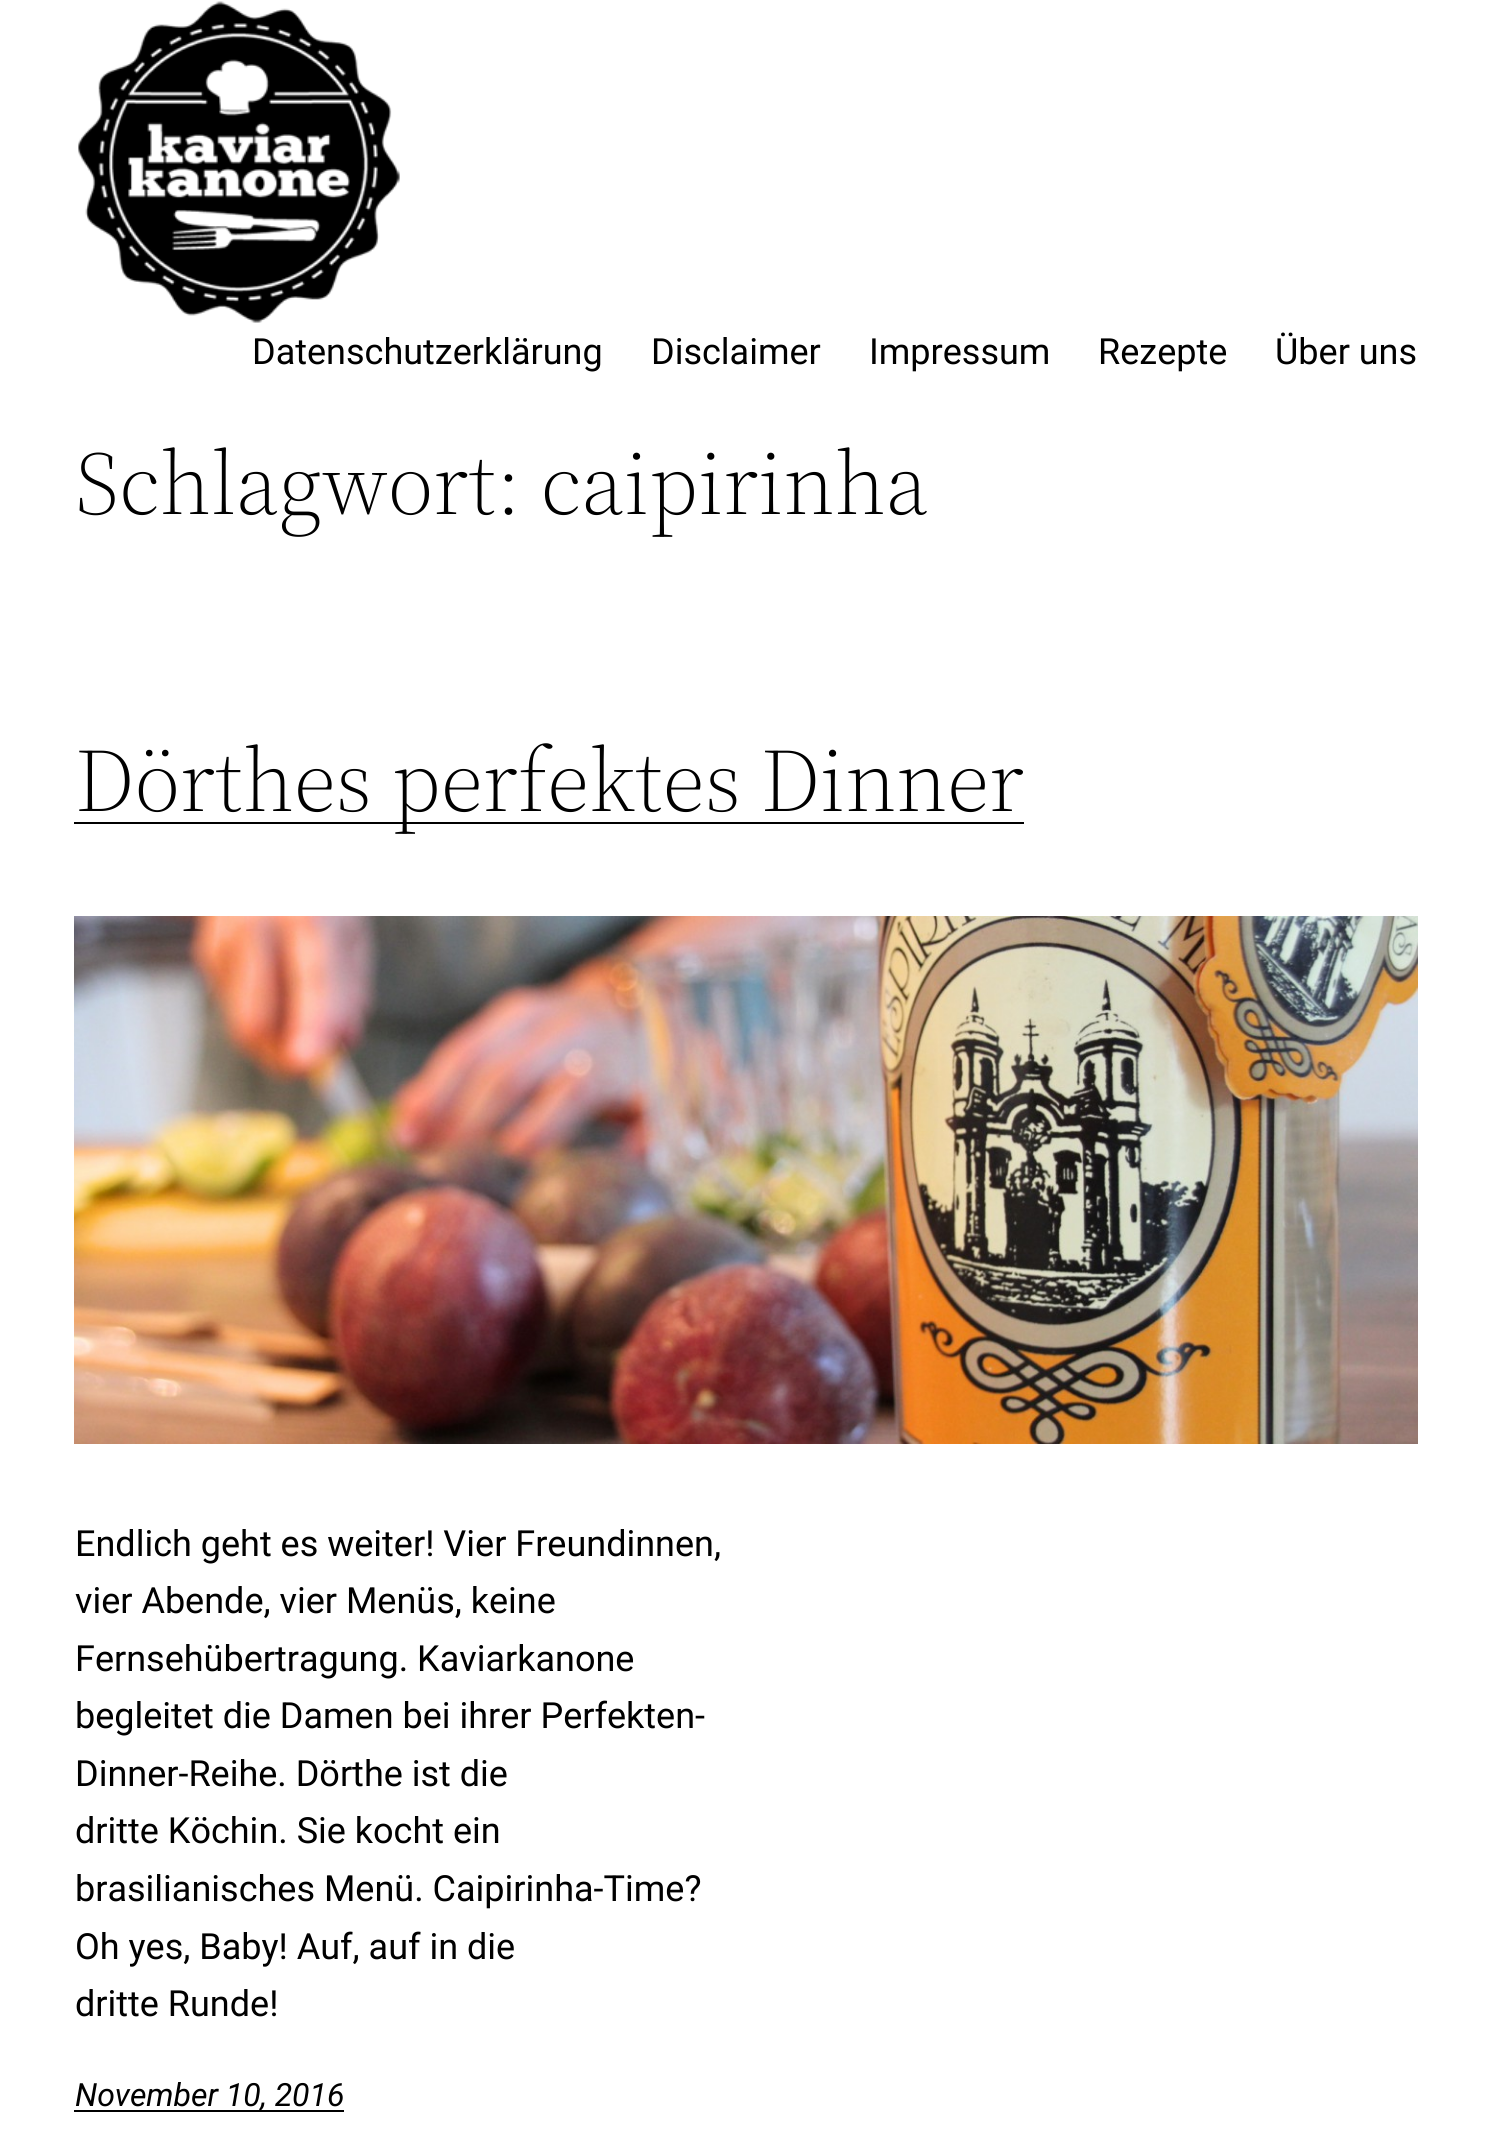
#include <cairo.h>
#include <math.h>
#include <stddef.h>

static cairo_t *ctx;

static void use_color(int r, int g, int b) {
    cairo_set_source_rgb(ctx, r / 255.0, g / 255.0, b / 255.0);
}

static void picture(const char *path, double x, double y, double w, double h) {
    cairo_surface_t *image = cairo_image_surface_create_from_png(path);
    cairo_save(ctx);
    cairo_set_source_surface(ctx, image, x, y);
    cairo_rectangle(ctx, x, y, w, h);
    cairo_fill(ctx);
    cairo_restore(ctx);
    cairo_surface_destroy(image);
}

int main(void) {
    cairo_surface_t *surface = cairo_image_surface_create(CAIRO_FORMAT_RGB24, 1492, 2150);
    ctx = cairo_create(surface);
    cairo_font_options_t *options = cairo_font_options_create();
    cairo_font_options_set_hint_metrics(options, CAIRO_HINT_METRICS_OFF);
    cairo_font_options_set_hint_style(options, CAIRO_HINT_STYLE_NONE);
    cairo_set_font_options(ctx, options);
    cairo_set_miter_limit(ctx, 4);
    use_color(255, 255, 255);
    cairo_paint(ctx);
    picture("img1.png", 78, 1, 322, 322);
    cairo_select_font_face(ctx, "Roboto", CAIRO_FONT_SLANT_NORMAL, CAIRO_FONT_WEIGHT_NORMAL);
    cairo_set_font_size(ctx, 36);
    use_color(0, 0, 0);
    cairo_move_to(ctx, 252, 364);
    cairo_show_text(ctx, "Datenschutzerklärung");
    cairo_move_to(ctx, 651, 364);
    cairo_show_text(ctx, "Disclaimer");
    cairo_move_to(ctx, 869, 364);
    cairo_show_text(ctx, "Impressum");
    cairo_move_to(ctx, 1098, 364);
    cairo_show_text(ctx, "Rezepte");
    cairo_move_to(ctx, 1275, 364);
    cairo_show_text(ctx, "Über uns");
    cairo_select_font_face(ctx, "Source Serif 4 Light", CAIRO_FONT_SLANT_NORMAL, CAIRO_FONT_WEIGHT_NORMAL);
    cairo_set_font_size(ctx, 89.5);
    cairo_move_to(ctx, 75, 514);
    cairo_show_text(ctx, "Schlagwort: caipirinha");
    cairo_rectangle(ctx, 74, 822, 950, 2);
    cairo_fill(ctx);
    cairo_move_to(ctx, 75, 811);
    cairo_show_text(ctx, "Dörthes perfektes Dinner");
    picture("img2.png", 74, 916, 1344, 528);
    cairo_select_font_face(ctx, "Roboto", CAIRO_FONT_SLANT_NORMAL, CAIRO_FONT_WEIGHT_NORMAL);
    cairo_set_font_size(ctx, 36);
    cairo_move_to(ctx, 75, 1556);
    cairo_show_text(ctx, "Endlich geht es weiter! Vier Freundinnen,");
    cairo_move_to(ctx, 75, 1613);
    cairo_show_text(ctx, "vier Abende, vier Menüs, keine");
    cairo_move_to(ctx, 75, 1671);
    cairo_show_text(ctx, "Fernsehübertragung. Kaviarkanone");
    cairo_move_to(ctx, 75, 1728);
    cairo_show_text(ctx, "begleitet die Damen bei ihrer Perfekten-");
    cairo_move_to(ctx, 75, 1786);
    cairo_show_text(ctx, "Dinner-Reihe. Dörthe ist die");
    cairo_move_to(ctx, 75, 1843);
    cairo_show_text(ctx, "dritte Köchin. Sie kocht ein");
    cairo_move_to(ctx, 75, 1901);
    cairo_show_text(ctx, "brasilianisches Menü. Caipirinha-Time?");
    cairo_move_to(ctx, 75, 1959);
    cairo_show_text(ctx, "Oh yes, Baby! Auf, auf in die");
    cairo_move_to(ctx, 75, 2016);
    cairo_show_text(ctx, "dritte Runde!");
    cairo_rectangle(ctx, 74, 2110, 270, 2);
    cairo_fill(ctx);
    cairo_select_font_face(ctx, "Roboto", CAIRO_FONT_SLANT_ITALIC, CAIRO_FONT_WEIGHT_NORMAL);
    cairo_set_font_size(ctx, 32);
    cairo_move_to(ctx, 75, 2106);
    cairo_show_text(ctx, "November 10, 2016");
    cairo_surface_write_to_png(surface, "result.png");
    cairo_font_options_destroy(options);
    cairo_destroy(ctx);
    cairo_surface_destroy(surface);
    return 0;
}
